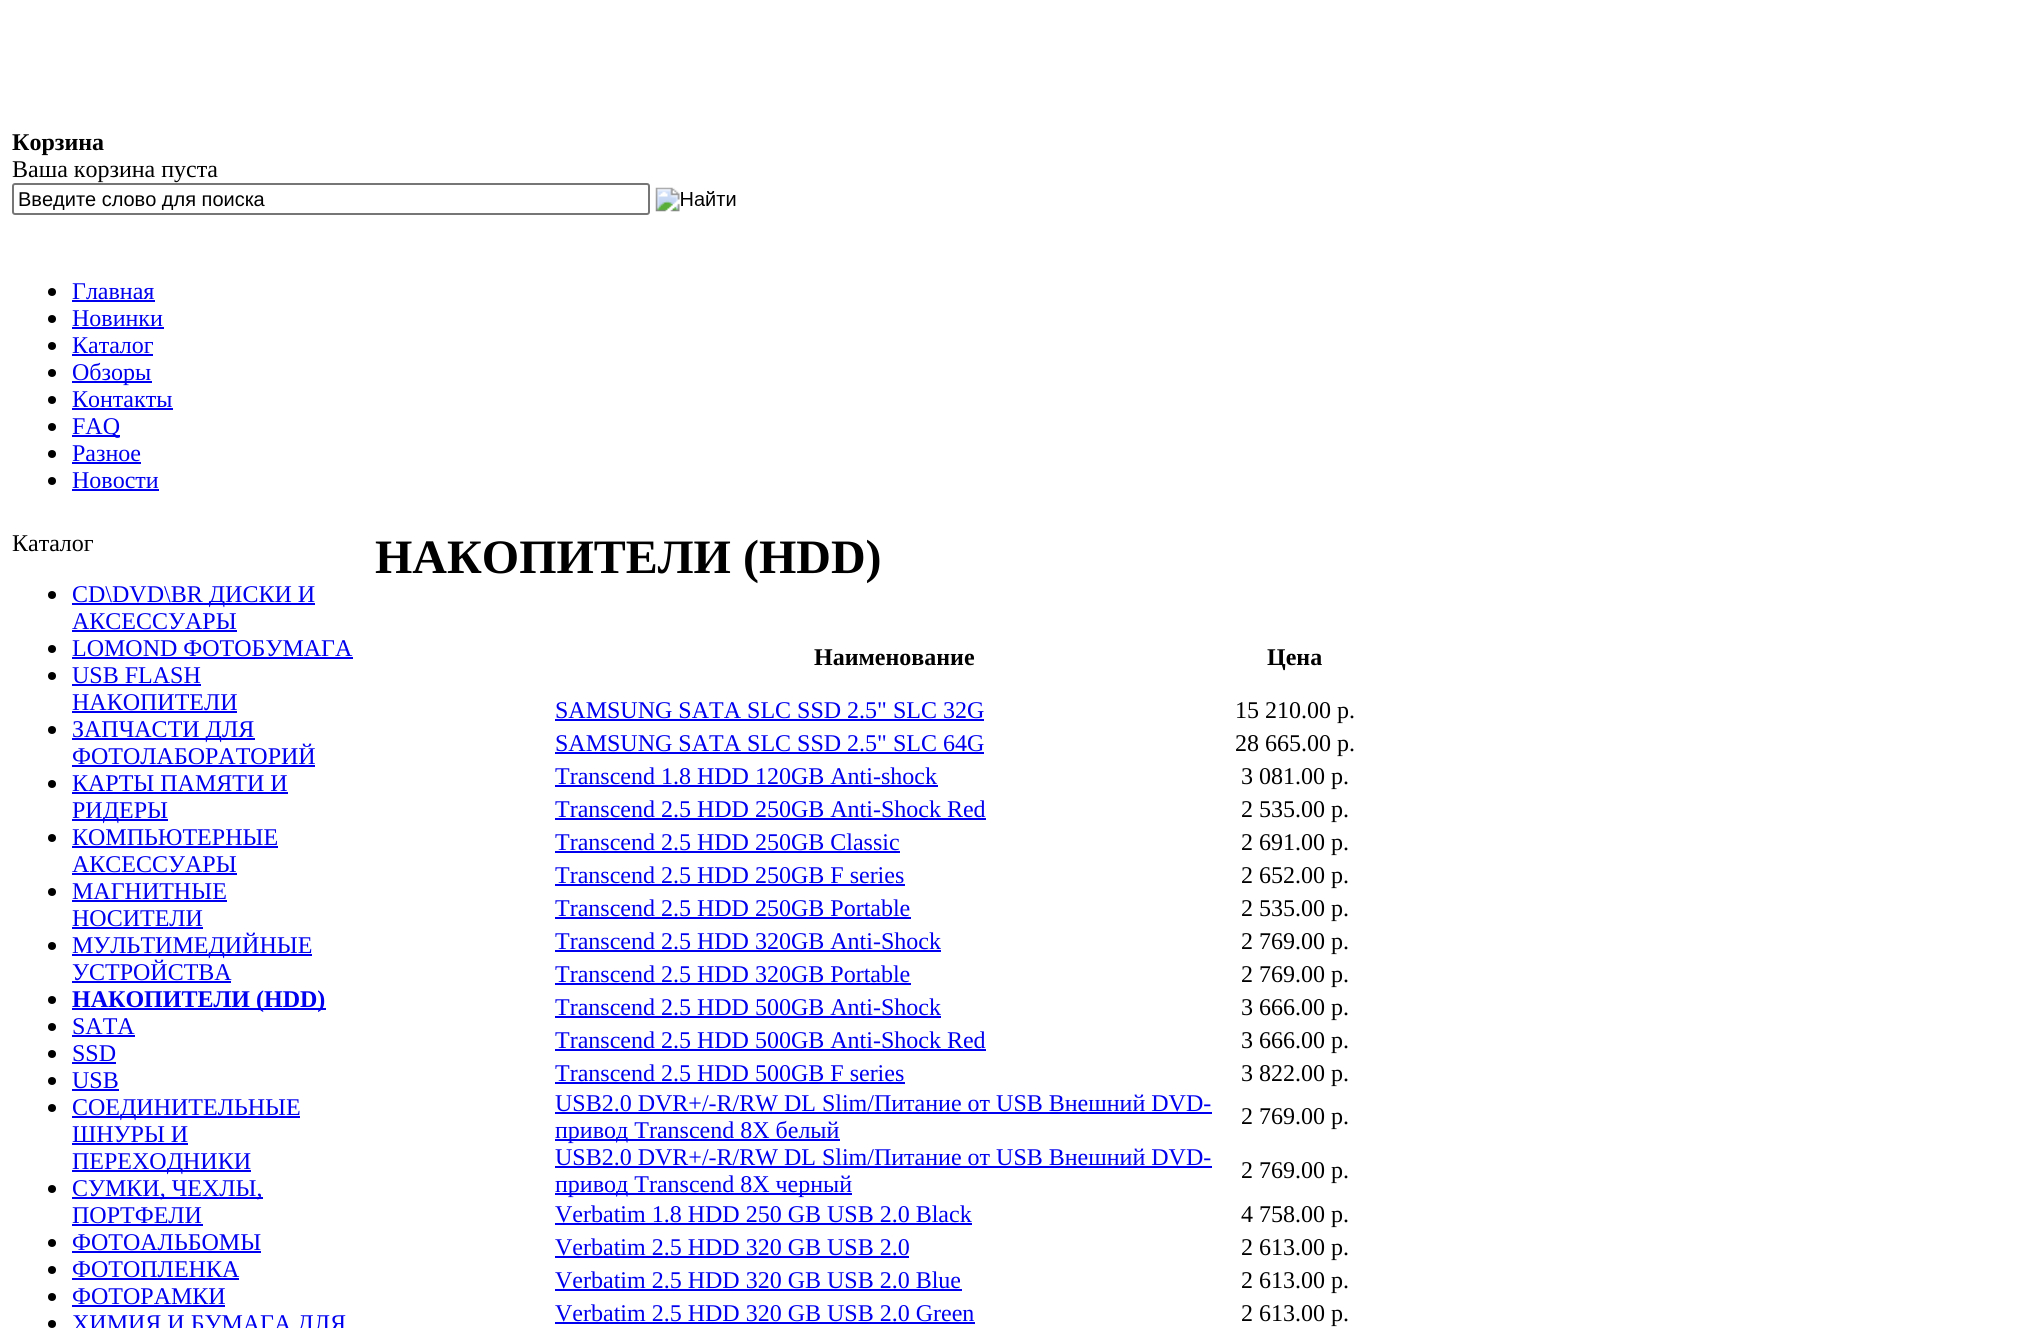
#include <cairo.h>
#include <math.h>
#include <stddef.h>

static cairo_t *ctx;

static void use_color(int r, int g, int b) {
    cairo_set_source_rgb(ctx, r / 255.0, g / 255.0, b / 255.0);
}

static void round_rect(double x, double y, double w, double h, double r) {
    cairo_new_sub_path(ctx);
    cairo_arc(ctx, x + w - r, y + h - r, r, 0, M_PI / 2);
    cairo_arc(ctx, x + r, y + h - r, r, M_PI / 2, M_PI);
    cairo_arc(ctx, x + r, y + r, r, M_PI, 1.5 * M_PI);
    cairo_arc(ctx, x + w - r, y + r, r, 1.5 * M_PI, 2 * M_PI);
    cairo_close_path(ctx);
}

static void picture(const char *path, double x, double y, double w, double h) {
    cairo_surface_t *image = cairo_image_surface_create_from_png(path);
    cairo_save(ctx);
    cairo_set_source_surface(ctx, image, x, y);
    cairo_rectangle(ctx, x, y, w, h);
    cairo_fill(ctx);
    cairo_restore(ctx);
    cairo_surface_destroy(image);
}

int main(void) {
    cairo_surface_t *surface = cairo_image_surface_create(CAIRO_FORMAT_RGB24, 2041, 1328);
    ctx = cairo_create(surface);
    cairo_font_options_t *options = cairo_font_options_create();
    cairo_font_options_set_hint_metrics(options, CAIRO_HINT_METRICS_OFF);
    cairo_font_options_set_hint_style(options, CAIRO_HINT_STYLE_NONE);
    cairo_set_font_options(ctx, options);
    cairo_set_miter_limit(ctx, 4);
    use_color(255, 255, 255);
    cairo_paint(ctx);
    cairo_select_font_face(ctx, "Liberation Serif", CAIRO_FONT_SLANT_NORMAL, CAIRO_FONT_WEIGHT_BOLD);
    cairo_set_font_size(ctx, 24);
    use_color(0, 0, 0);
    cairo_move_to(ctx, 12, 150);
    cairo_show_text(ctx, "Корзина");
    cairo_select_font_face(ctx, "Liberation Serif", CAIRO_FONT_SLANT_NORMAL, CAIRO_FONT_WEIGHT_NORMAL);
    cairo_move_to(ctx, 12, 177);
    cairo_show_text(ctx, "Ваша корзина пуста");
    round_rect(13, 184, 636, 30, 2);
    use_color(118, 118, 118);
    cairo_stroke(ctx);
    cairo_select_font_face(ctx, "Liberation Sans", CAIRO_FONT_SLANT_NORMAL, CAIRO_FONT_WEIGHT_NORMAL);
    cairo_set_font_size(ctx, 20);
    use_color(0, 0, 0);
    cairo_move_to(ctx, 18, 206);
    cairo_show_text(ctx, "Введите слово для поиска");
    picture("img1.png", 655, 187, 81, 25);
    cairo_arc(ctx, 52, 292, 4, 0, 2 * M_PI);
    cairo_fill(ctx);
    cairo_select_font_face(ctx, "Liberation Serif", CAIRO_FONT_SLANT_NORMAL, CAIRO_FONT_WEIGHT_NORMAL);
    cairo_set_font_size(ctx, 24);
    use_color(0, 0, 238);
    cairo_move_to(ctx, 72, 299);
    cairo_show_text(ctx, "Главная");
    cairo_rectangle(ctx, 72, 300, 83, 2);
    cairo_fill(ctx);
    use_color(0, 0, 0);
    cairo_arc(ctx, 52, 319, 4, 0, 2 * M_PI);
    cairo_fill(ctx);
    use_color(0, 0, 238);
    cairo_move_to(ctx, 72, 326);
    cairo_show_text(ctx, "Новинки");
    cairo_rectangle(ctx, 72, 327, 92, 2);
    cairo_fill(ctx);
    use_color(0, 0, 0);
    cairo_arc(ctx, 52, 346, 4, 0, 2 * M_PI);
    cairo_fill(ctx);
    use_color(0, 0, 238);
    cairo_move_to(ctx, 72, 353);
    cairo_show_text(ctx, "Каталог");
    cairo_rectangle(ctx, 72, 354, 81, 2);
    cairo_fill(ctx);
    use_color(0, 0, 0);
    cairo_arc(ctx, 52, 373, 4, 0, 2 * M_PI);
    cairo_fill(ctx);
    use_color(0, 0, 238);
    cairo_rectangle(ctx, 72, 381, 80, 2);
    cairo_fill(ctx);
    cairo_move_to(ctx, 72, 380);
    cairo_show_text(ctx, "Обзоры");
    use_color(0, 0, 0);
    cairo_new_path(ctx);
    cairo_arc(ctx, 52, 400, 4, 0, 2 * M_PI);
    cairo_fill(ctx);
    use_color(0, 0, 238);
    cairo_move_to(ctx, 72, 407);
    cairo_show_text(ctx, "Контакты");
    cairo_rectangle(ctx, 72, 408, 101, 2);
    cairo_fill(ctx);
    use_color(0, 0, 0);
    cairo_arc(ctx, 52, 427, 4, 0, 2 * M_PI);
    cairo_fill(ctx);
    use_color(0, 0, 238);
    cairo_rectangle(ctx, 72, 435, 48, 2);
    cairo_fill(ctx);
    cairo_move_to(ctx, 72, 434);
    cairo_show_text(ctx, "FAQ");
    use_color(0, 0, 0);
    cairo_new_path(ctx);
    cairo_arc(ctx, 52, 454, 4, 0, 2 * M_PI);
    cairo_fill(ctx);
    use_color(0, 0, 238);
    cairo_move_to(ctx, 72, 461);
    cairo_show_text(ctx, "Разное");
    cairo_rectangle(ctx, 72, 462, 69, 2);
    cairo_fill(ctx);
    use_color(0, 0, 0);
    cairo_arc(ctx, 52, 481, 4, 0, 2 * M_PI);
    cairo_fill(ctx);
    use_color(0, 0, 238);
    cairo_move_to(ctx, 72, 488);
    cairo_show_text(ctx, "Новости");
    cairo_rectangle(ctx, 72, 489, 87, 2);
    cairo_fill(ctx);
    use_color(0, 0, 0);
    cairo_move_to(ctx, 12, 551);
    cairo_show_text(ctx, "Каталог");
    cairo_new_path(ctx);
    cairo_arc(ctx, 52, 595, 4, 0, 2 * M_PI);
    cairo_fill(ctx);
    use_color(0, 0, 238);
    cairo_rectangle(ctx, 72, 603, 243, 2);
    cairo_fill(ctx);
    cairo_move_to(ctx, 72, 602);
    cairo_show_text(ctx, "CD\\DVD\\BR ДИСКИ И");
    cairo_move_to(ctx, 72, 629);
    cairo_show_text(ctx, "АКСЕССУАРЫ");
    cairo_rectangle(ctx, 72, 630, 165, 2);
    cairo_fill(ctx);
    use_color(0, 0, 0);
    cairo_arc(ctx, 52, 649, 4, 0, 2 * M_PI);
    cairo_fill(ctx);
    use_color(0, 0, 238);
    cairo_move_to(ctx, 72, 656);
    cairo_show_text(ctx, "LOMOND ФОТОБУМАГА");
    cairo_rectangle(ctx, 72, 657, 281, 2);
    cairo_fill(ctx);
    use_color(0, 0, 0);
    cairo_arc(ctx, 52, 676, 4, 0, 2 * M_PI);
    cairo_fill(ctx);
    use_color(0, 0, 238);
    cairo_move_to(ctx, 72, 683);
    cairo_show_text(ctx, "USB FLASH");
    cairo_rectangle(ctx, 72, 684, 129, 2);
    cairo_fill(ctx);
    cairo_move_to(ctx, 72, 710);
    cairo_show_text(ctx, "НАКОПИТЕЛИ");
    cairo_rectangle(ctx, 72, 711, 165, 2);
    cairo_fill(ctx);
    use_color(0, 0, 0);
    cairo_arc(ctx, 52, 730, 4, 0, 2 * M_PI);
    cairo_fill(ctx);
    use_color(0, 0, 238);
    cairo_rectangle(ctx, 72, 738, 183, 2);
    cairo_fill(ctx);
    cairo_move_to(ctx, 72, 737);
    cairo_show_text(ctx, "ЗАПЧАСТИ ДЛЯ");
    cairo_move_to(ctx, 72, 764);
    cairo_show_text(ctx, "ФОТОЛАБОРАТОРИЙ");
    cairo_rectangle(ctx, 72, 765, 243, 2);
    cairo_fill(ctx);
    use_color(0, 0, 0);
    cairo_arc(ctx, 52, 784, 4, 0, 2 * M_PI);
    cairo_fill(ctx);
    use_color(0, 0, 238);
    cairo_move_to(ctx, 72, 791);
    cairo_show_text(ctx, "КАРТЫ ПАМЯТИ И");
    cairo_rectangle(ctx, 72, 792, 216, 2);
    cairo_fill(ctx);
    cairo_rectangle(ctx, 72, 819, 96, 2);
    cairo_fill(ctx);
    cairo_move_to(ctx, 72, 818);
    cairo_show_text(ctx, "РИДЕРЫ");
    use_color(0, 0, 0);
    cairo_new_path(ctx);
    cairo_arc(ctx, 52, 838, 4, 0, 2 * M_PI);
    cairo_fill(ctx);
    use_color(0, 0, 238);
    cairo_move_to(ctx, 72, 845);
    cairo_show_text(ctx, "КОМПЬЮТЕРНЫЕ");
    cairo_rectangle(ctx, 72, 846, 206, 2);
    cairo_fill(ctx);
    cairo_move_to(ctx, 72, 872);
    cairo_show_text(ctx, "АКСЕССУАРЫ");
    cairo_rectangle(ctx, 72, 873, 165, 2);
    cairo_fill(ctx);
    use_color(0, 0, 0);
    cairo_arc(ctx, 52, 892, 4, 0, 2 * M_PI);
    cairo_fill(ctx);
    use_color(0, 0, 238);
    cairo_move_to(ctx, 72, 899);
    cairo_show_text(ctx, "МАГНИТНЫЕ");
    cairo_rectangle(ctx, 72, 900, 155, 2);
    cairo_fill(ctx);
    cairo_move_to(ctx, 72, 926);
    cairo_show_text(ctx, "НОСИТЕЛИ");
    cairo_rectangle(ctx, 72, 927, 131, 2);
    cairo_fill(ctx);
    use_color(0, 0, 0);
    cairo_arc(ctx, 52, 946, 4, 0, 2 * M_PI);
    cairo_fill(ctx);
    use_color(0, 0, 238);
    cairo_rectangle(ctx, 72, 954, 240, 2);
    cairo_fill(ctx);
    cairo_move_to(ctx, 72, 953);
    cairo_show_text(ctx, "МУЛЬТИМЕДИЙНЫЕ");
    cairo_move_to(ctx, 72, 980);
    cairo_show_text(ctx, "УСТРОЙСТВА");
    cairo_rectangle(ctx, 72, 981, 159, 2);
    cairo_fill(ctx);
    use_color(0, 0, 0);
    cairo_arc(ctx, 52, 1000, 4, 0, 2 * M_PI);
    cairo_fill(ctx);
    use_color(0, 0, 238);
    cairo_rectangle(ctx, 72, 1008, 254, 2);
    cairo_fill(ctx);
    cairo_select_font_face(ctx, "Liberation Serif", CAIRO_FONT_SLANT_NORMAL, CAIRO_FONT_WEIGHT_BOLD);
    cairo_move_to(ctx, 72, 1007);
    cairo_show_text(ctx, "НАКОПИТЕЛИ (HDD)");
    use_color(0, 0, 0);
    cairo_new_path(ctx);
    cairo_arc(ctx, 52, 1027, 4, 0, 2 * M_PI);
    cairo_fill(ctx);
    cairo_select_font_face(ctx, "Liberation Serif", CAIRO_FONT_SLANT_NORMAL, CAIRO_FONT_WEIGHT_NORMAL);
    use_color(0, 0, 238);
    cairo_move_to(ctx, 72, 1034);
    cairo_show_text(ctx, "SATA");
    cairo_rectangle(ctx, 72, 1035, 63, 2);
    cairo_fill(ctx);
    use_color(0, 0, 0);
    cairo_arc(ctx, 52, 1054, 4, 0, 2 * M_PI);
    cairo_fill(ctx);
    use_color(0, 0, 238);
    cairo_move_to(ctx, 72, 1061);
    cairo_show_text(ctx, "SSD");
    cairo_rectangle(ctx, 72, 1062, 44, 2);
    cairo_fill(ctx);
    use_color(0, 0, 0);
    cairo_arc(ctx, 52, 1081, 4, 0, 2 * M_PI);
    cairo_fill(ctx);
    use_color(0, 0, 238);
    cairo_move_to(ctx, 72, 1088);
    cairo_show_text(ctx, "USB");
    cairo_rectangle(ctx, 72, 1089, 47, 2);
    cairo_fill(ctx);
    use_color(0, 0, 0);
    cairo_arc(ctx, 52, 1108, 4, 0, 2 * M_PI);
    cairo_fill(ctx);
    use_color(0, 0, 238);
    cairo_rectangle(ctx, 72, 1116, 228, 2);
    cairo_fill(ctx);
    cairo_move_to(ctx, 72, 1115);
    cairo_show_text(ctx, "СОЕДИНИТЕЛЬНЫЕ");
    cairo_move_to(ctx, 72, 1142);
    cairo_show_text(ctx, "ШНУРЫ И");
    cairo_rectangle(ctx, 72, 1143, 116, 2);
    cairo_fill(ctx);
    cairo_rectangle(ctx, 72, 1170, 179, 2);
    cairo_fill(ctx);
    cairo_move_to(ctx, 72, 1169);
    cairo_show_text(ctx, "ПЕРЕХОДНИКИ");
    use_color(0, 0, 0);
    cairo_new_path(ctx);
    cairo_arc(ctx, 52, 1189, 4, 0, 2 * M_PI);
    cairo_fill(ctx);
    use_color(0, 0, 238);
    cairo_rectangle(ctx, 72, 1197, 191, 2);
    cairo_fill(ctx);
    cairo_move_to(ctx, 72, 1196);
    cairo_show_text(ctx, "СУМКИ, ЧЕХЛЫ,");
    cairo_move_to(ctx, 72, 1223);
    cairo_show_text(ctx, "ПОРТФЕЛИ");
    cairo_rectangle(ctx, 72, 1224, 131, 2);
    cairo_fill(ctx);
    use_color(0, 0, 0);
    cairo_arc(ctx, 52, 1243, 4, 0, 2 * M_PI);
    cairo_fill(ctx);
    use_color(0, 0, 238);
    cairo_move_to(ctx, 72, 1250);
    cairo_show_text(ctx, "ФОТОАЛЬБОМЫ");
    cairo_rectangle(ctx, 72, 1251, 189, 2);
    cairo_fill(ctx);
    use_color(0, 0, 0);
    cairo_arc(ctx, 52, 1270, 4, 0, 2 * M_PI);
    cairo_fill(ctx);
    use_color(0, 0, 238);
    cairo_move_to(ctx, 72, 1277);
    cairo_show_text(ctx, "ФОТОПЛЕНКА");
    cairo_rectangle(ctx, 72, 1278, 167, 2);
    cairo_fill(ctx);
    use_color(0, 0, 0);
    cairo_arc(ctx, 52, 1297, 4, 0, 2 * M_PI);
    cairo_fill(ctx);
    use_color(0, 0, 238);
    cairo_move_to(ctx, 72, 1304);
    cairo_show_text(ctx, "ФОТОРАМКИ");
    cairo_rectangle(ctx, 72, 1305, 153, 2);
    cairo_fill(ctx);
    use_color(0, 0, 0);
    cairo_arc(ctx, 52, 1324, 4, 0, 2 * M_PI);
    cairo_fill(ctx);
    use_color(0, 0, 238);
    cairo_move_to(ctx, 72, 1331);
    cairo_show_text(ctx, "ХИМИЯ И БУМАГА ДЛЯ");
    cairo_select_font_face(ctx, "Liberation Serif", CAIRO_FONT_SLANT_NORMAL, CAIRO_FONT_WEIGHT_BOLD);
    cairo_set_font_size(ctx, 48);
    use_color(0, 0, 0);
    cairo_move_to(ctx, 375, 573);
    cairo_show_text(ctx, "НАКОПИТЕЛИ (HDD)");
    cairo_set_font_size(ctx, 24);
    cairo_move_to(ctx, 814, 665);
    cairo_show_text(ctx, "Наименование");
    cairo_move_to(ctx, 1267, 665);
    cairo_show_text(ctx, "Цена");
    cairo_select_font_face(ctx, "Liberation Serif", CAIRO_FONT_SLANT_NORMAL, CAIRO_FONT_WEIGHT_NORMAL);
    use_color(0, 0, 238);
    cairo_move_to(ctx, 555, 718);
    cairo_show_text(ctx, "SAMSUNG SATA SLC SSD 2.5\" SLC 32G");
    cairo_rectangle(ctx, 555, 719, 429, 2);
    cairo_fill(ctx);
    use_color(0, 0, 0);
    cairo_move_to(ctx, 1235, 718);
    cairo_show_text(ctx, "15 210.00 р.");
    use_color(0, 0, 238);
    cairo_move_to(ctx, 555, 751);
    cairo_show_text(ctx, "SAMSUNG SATA SLC SSD 2.5\" SLC 64G");
    cairo_rectangle(ctx, 555, 752, 429, 2);
    cairo_fill(ctx);
    use_color(0, 0, 0);
    cairo_move_to(ctx, 1235, 751);
    cairo_show_text(ctx, "28 665.00 р.");
    use_color(0, 0, 238);
    cairo_move_to(ctx, 555, 784);
    cairo_show_text(ctx, "Transcend 1.8 HDD 120GB Anti-shock");
    cairo_rectangle(ctx, 555, 785, 383, 2);
    cairo_fill(ctx);
    use_color(0, 0, 0);
    cairo_move_to(ctx, 1241, 784);
    cairo_show_text(ctx, "3 081.00 р.");
    use_color(0, 0, 238);
    cairo_move_to(ctx, 555, 817);
    cairo_show_text(ctx, "Transcend 2.5 HDD 250GB Anti-Shock Red");
    cairo_rectangle(ctx, 555, 818, 431, 2);
    cairo_fill(ctx);
    use_color(0, 0, 0);
    cairo_move_to(ctx, 1241, 817);
    cairo_show_text(ctx, "2 535.00 р.");
    use_color(0, 0, 238);
    cairo_move_to(ctx, 555, 850);
    cairo_show_text(ctx, "Transcend 2.5 HDD 250GB Classic");
    cairo_rectangle(ctx, 555, 851, 345, 2);
    cairo_fill(ctx);
    use_color(0, 0, 0);
    cairo_move_to(ctx, 1241, 850);
    cairo_show_text(ctx, "2 691.00 р.");
    use_color(0, 0, 238);
    cairo_move_to(ctx, 555, 883);
    cairo_show_text(ctx, "Transcend 2.5 HDD 250GB F series");
    cairo_rectangle(ctx, 555, 884, 350, 2);
    cairo_fill(ctx);
    use_color(0, 0, 0);
    cairo_move_to(ctx, 1241, 883);
    cairo_show_text(ctx, "2 652.00 р.");
    use_color(0, 0, 238);
    cairo_move_to(ctx, 555, 916);
    cairo_show_text(ctx, "Transcend 2.5 HDD 250GB Portable");
    cairo_rectangle(ctx, 555, 917, 356, 2);
    cairo_fill(ctx);
    use_color(0, 0, 0);
    cairo_move_to(ctx, 1241, 916);
    cairo_show_text(ctx, "2 535.00 р.");
    use_color(0, 0, 238);
    cairo_move_to(ctx, 555, 949);
    cairo_show_text(ctx, "Transcend 2.5 HDD 320GB Anti-Shock");
    cairo_rectangle(ctx, 555, 950, 386, 2);
    cairo_fill(ctx);
    use_color(0, 0, 0);
    cairo_move_to(ctx, 1241, 949);
    cairo_show_text(ctx, "2 769.00 р.");
    use_color(0, 0, 238);
    cairo_move_to(ctx, 555, 982);
    cairo_show_text(ctx, "Transcend 2.5 HDD 320GB Portable");
    cairo_rectangle(ctx, 555, 983, 356, 2);
    cairo_fill(ctx);
    use_color(0, 0, 0);
    cairo_move_to(ctx, 1241, 982);
    cairo_show_text(ctx, "2 769.00 р.");
    use_color(0, 0, 238);
    cairo_move_to(ctx, 555, 1015);
    cairo_show_text(ctx, "Transcend 2.5 HDD 500GB Anti-Shock");
    cairo_rectangle(ctx, 555, 1016, 386, 2);
    cairo_fill(ctx);
    use_color(0, 0, 0);
    cairo_move_to(ctx, 1241, 1015);
    cairo_show_text(ctx, "3 666.00 р.");
    use_color(0, 0, 238);
    cairo_move_to(ctx, 555, 1048);
    cairo_show_text(ctx, "Transcend 2.5 HDD 500GB Anti-Shock Red");
    cairo_rectangle(ctx, 555, 1049, 431, 2);
    cairo_fill(ctx);
    use_color(0, 0, 0);
    cairo_move_to(ctx, 1241, 1048);
    cairo_show_text(ctx, "3 666.00 р.");
    use_color(0, 0, 238);
    cairo_move_to(ctx, 555, 1081);
    cairo_show_text(ctx, "Transcend 2.5 HDD 500GB F series");
    cairo_rectangle(ctx, 555, 1082, 350, 2);
    cairo_fill(ctx);
    use_color(0, 0, 0);
    cairo_move_to(ctx, 1241, 1081);
    cairo_show_text(ctx, "3 822.00 р.");
    use_color(0, 0, 238);
    cairo_move_to(ctx, 555, 1111);
    cairo_show_text(ctx, "USB2.0 DVR+/-R/RW DL Slim/Питание от USB Внешний DVD-");
    cairo_rectangle(ctx, 555, 1112, 657, 2);
    cairo_fill(ctx);
    cairo_rectangle(ctx, 555, 1139, 285, 2);
    cairo_fill(ctx);
    cairo_move_to(ctx, 555, 1138);
    cairo_show_text(ctx, "привод Transcend 8X белый");
    use_color(0, 0, 0);
    cairo_move_to(ctx, 1241, 1124);
    cairo_show_text(ctx, "2 769.00 р.");
    use_color(0, 0, 238);
    cairo_move_to(ctx, 555, 1165);
    cairo_show_text(ctx, "USB2.0 DVR+/-R/RW DL Slim/Питание от USB Внешний DVD-");
    cairo_rectangle(ctx, 555, 1166, 657, 2);
    cairo_fill(ctx);
    cairo_rectangle(ctx, 555, 1193, 297, 2);
    cairo_fill(ctx);
    cairo_move_to(ctx, 555, 1192);
    cairo_show_text(ctx, "привод Transcend 8X черный");
    use_color(0, 0, 0);
    cairo_move_to(ctx, 1241, 1178);
    cairo_show_text(ctx, "2 769.00 р.");
    use_color(0, 0, 238);
    cairo_move_to(ctx, 555, 1222);
    cairo_show_text(ctx, "Verbatim 1.8 HDD 250 GB USB 2.0 Black");
    cairo_rectangle(ctx, 555, 1223, 417, 2);
    cairo_fill(ctx);
    use_color(0, 0, 0);
    cairo_move_to(ctx, 1241, 1222);
    cairo_show_text(ctx, "4 758.00 р.");
    use_color(0, 0, 238);
    cairo_move_to(ctx, 555, 1255);
    cairo_show_text(ctx, "Verbatim 2.5 HDD 320 GB USB 2.0");
    cairo_rectangle(ctx, 555, 1256, 354, 2);
    cairo_fill(ctx);
    use_color(0, 0, 0);
    cairo_move_to(ctx, 1241, 1255);
    cairo_show_text(ctx, "2 613.00 р.");
    use_color(0, 0, 238);
    cairo_move_to(ctx, 555, 1288);
    cairo_show_text(ctx, "Verbatim 2.5 HDD 320 GB USB 2.0 Blue");
    cairo_rectangle(ctx, 555, 1289, 407, 2);
    cairo_fill(ctx);
    use_color(0, 0, 0);
    cairo_move_to(ctx, 1241, 1288);
    cairo_show_text(ctx, "2 613.00 р.");
    use_color(0, 0, 238);
    cairo_move_to(ctx, 555, 1321);
    cairo_show_text(ctx, "Verbatim 2.5 HDD 320 GB USB 2.0 Green");
    cairo_rectangle(ctx, 555, 1322, 420, 2);
    cairo_fill(ctx);
    use_color(0, 0, 0);
    cairo_move_to(ctx, 1241, 1321);
    cairo_show_text(ctx, "2 613.00 р.");
    cairo_surface_write_to_png(surface, "result.png");
    cairo_font_options_destroy(options);
    cairo_destroy(ctx);
    cairo_surface_destroy(surface);
    return 0;
}
